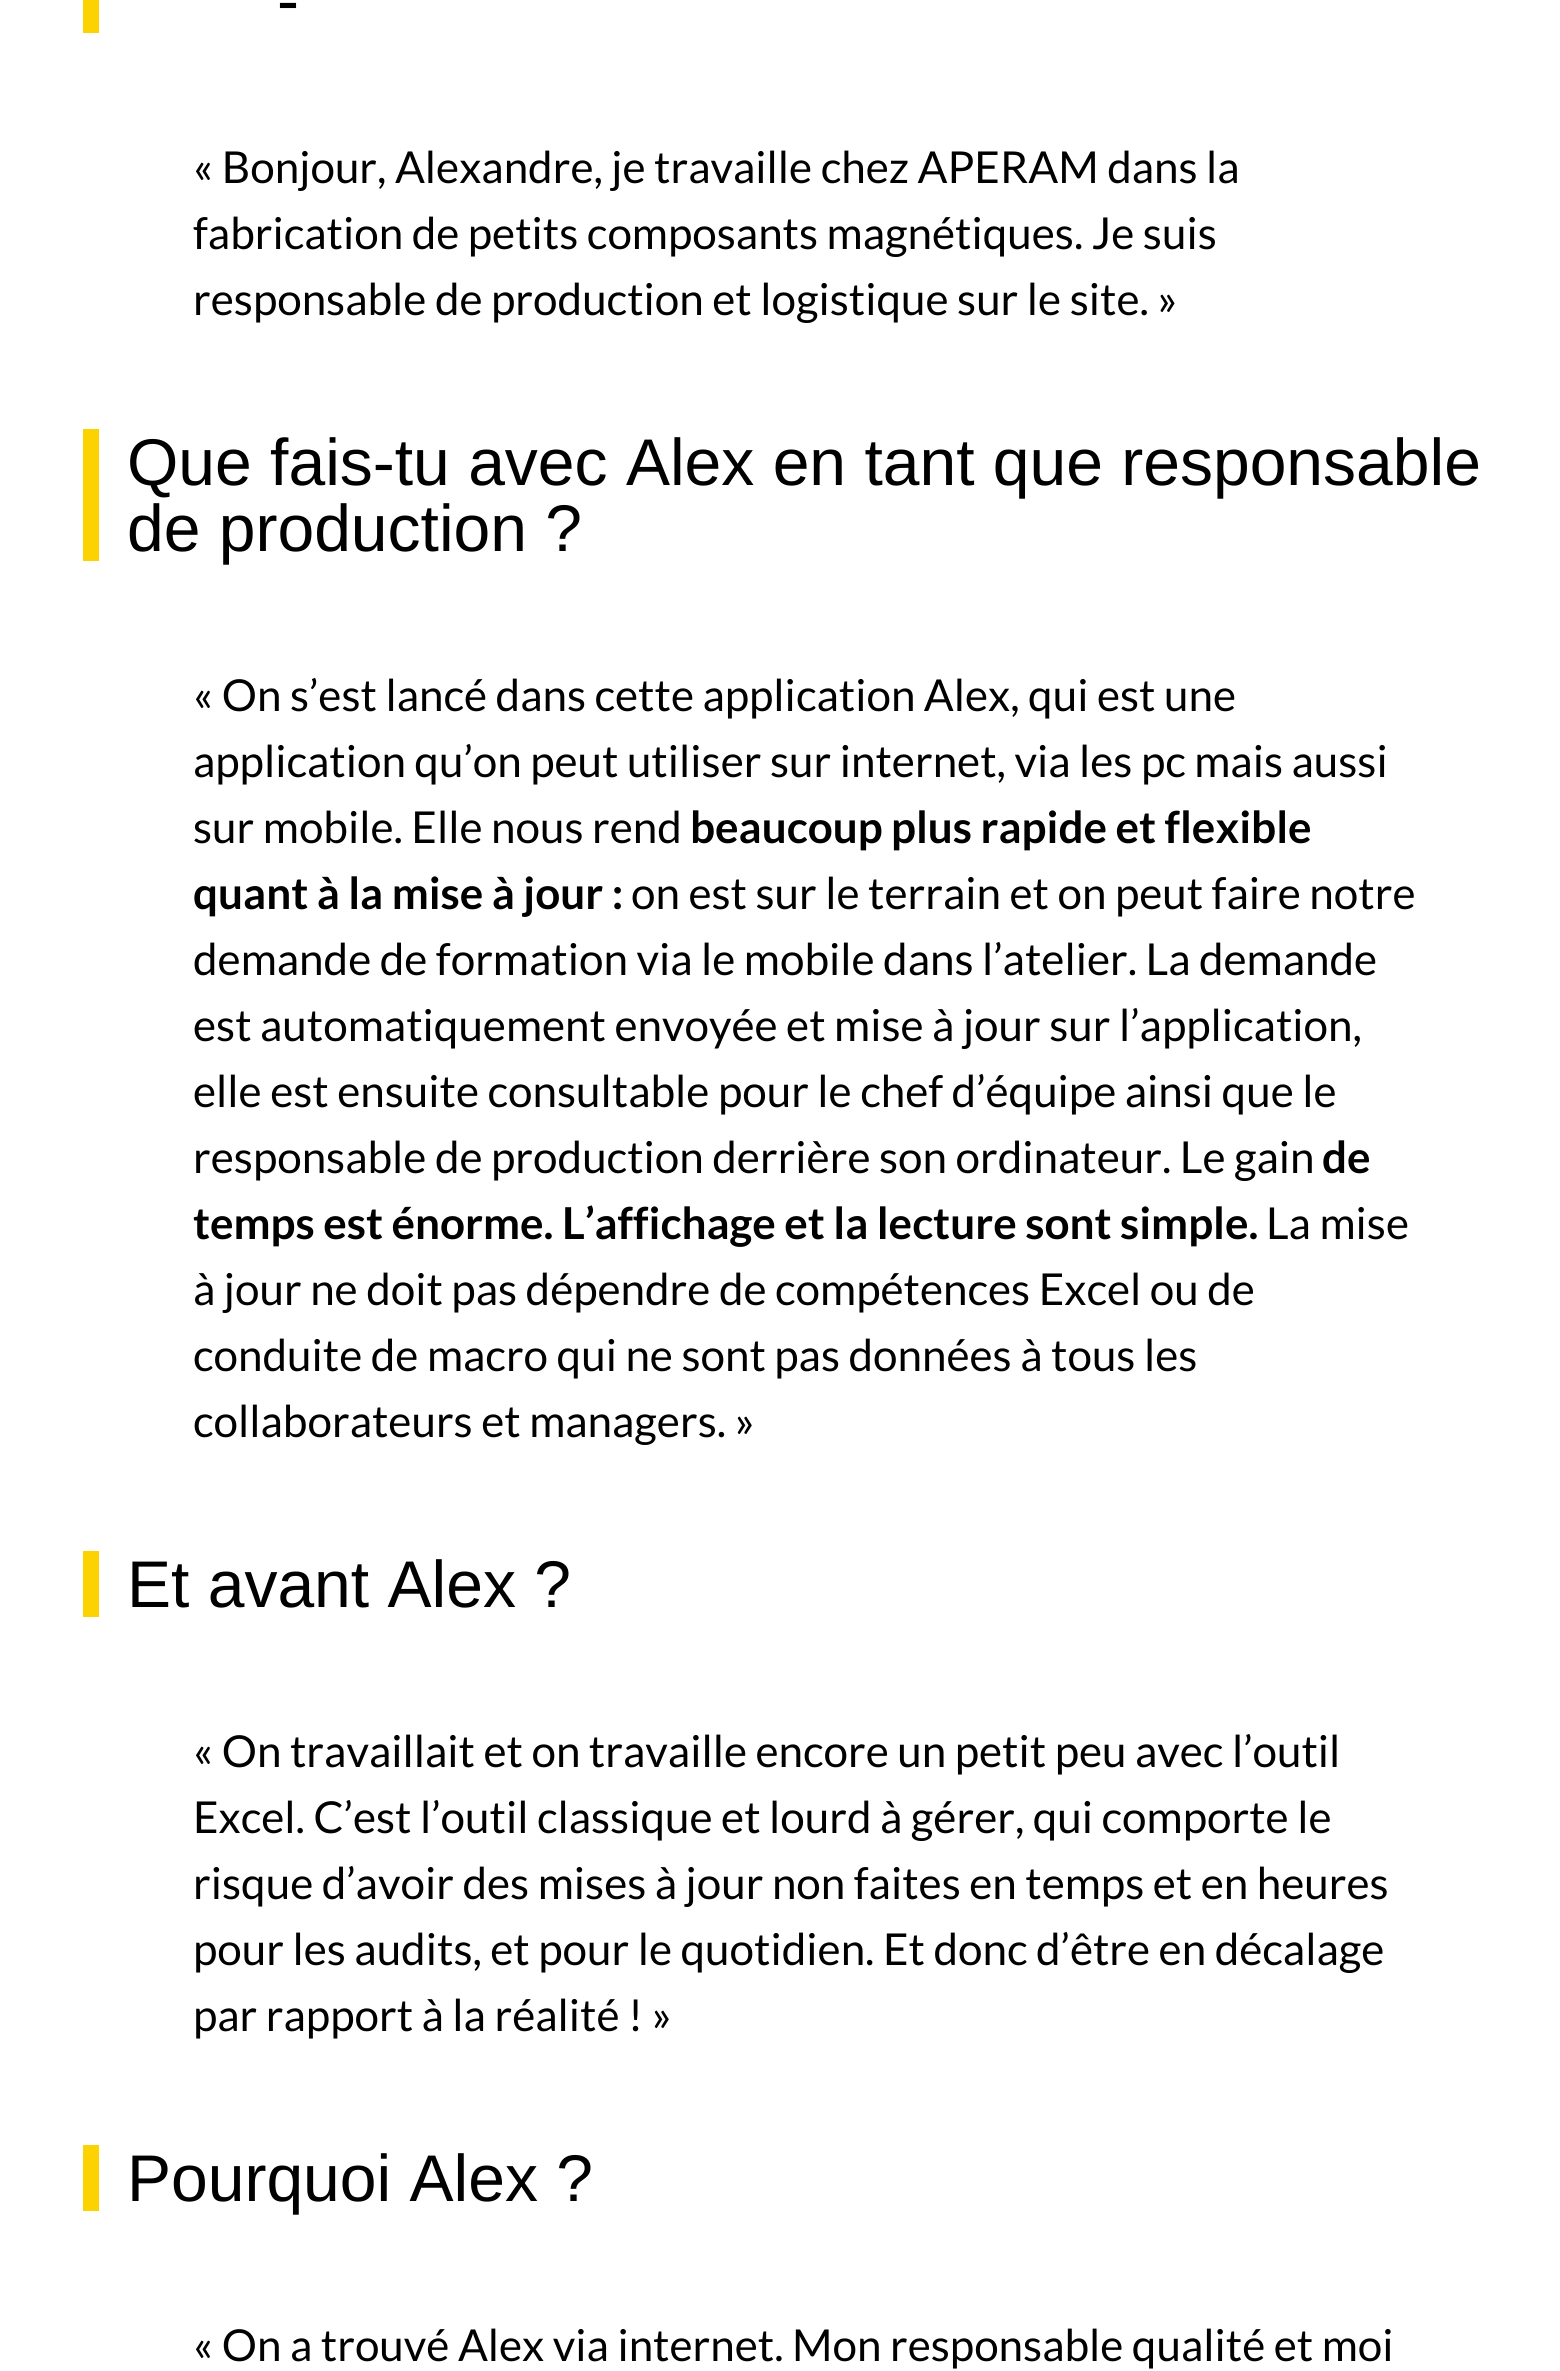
#include <cairo.h>
#include <math.h>
#include <stddef.h>

static cairo_t *ctx;

static void use_color(int r, int g, int b) {
    cairo_set_source_rgb(ctx, r / 255.0, g / 255.0, b / 255.0);
}

int main(void) {
    cairo_surface_t *surface = cairo_image_surface_create(CAIRO_FORMAT_RGB24, 1560, 2371);
    ctx = cairo_create(surface);
    cairo_font_options_t *options = cairo_font_options_create();
    cairo_font_options_set_hint_metrics(options, CAIRO_HINT_METRICS_OFF);
    cairo_font_options_set_hint_style(options, CAIRO_HINT_STYLE_NONE);
    cairo_set_font_options(ctx, options);
    cairo_set_miter_limit(ctx, 4);
    use_color(255, 255, 255);
    cairo_paint(ctx);
    use_color(252, 210, 0);
    cairo_rectangle(ctx, 83, 0, 16, 33);
    cairo_fill(ctx);
    cairo_select_font_face(ctx, "Liberation Sans", CAIRO_FONT_SLANT_NORMAL, CAIRO_FONT_WEIGHT_NORMAL);
    cairo_set_font_size(ctx, 66);
    use_color(0, 0, 0);
    cairo_move_to(ctx, 277, 23);
    cairo_show_text(ctx, "-");
    cairo_select_font_face(ctx, "Lato", CAIRO_FONT_SLANT_NORMAL, CAIRO_FONT_WEIGHT_NORMAL);
    cairo_set_font_size(ctx, 44);
    cairo_move_to(ctx, 193, 183);
    cairo_show_text(ctx, "« Bonjour, Alexandre, je travaille chez APERAM dans la");
    cairo_move_to(ctx, 193, 249);
    cairo_show_text(ctx, "fabrication de petits composants magnétiques. Je suis");
    cairo_move_to(ctx, 193, 315);
    cairo_show_text(ctx, "responsable de production et logistique sur le site. »");
    use_color(252, 210, 0);
    cairo_rectangle(ctx, 83, 429, 16, 132);
    cairo_fill(ctx);
    cairo_select_font_face(ctx, "Liberation Sans", CAIRO_FONT_SLANT_NORMAL, CAIRO_FONT_WEIGHT_NORMAL);
    cairo_set_font_size(ctx, 66);
    use_color(0, 0, 0);
    cairo_move_to(ctx, 127, 485);
    cairo_show_text(ctx, "Que fais-tu avec Alex en tant que responsable");
    cairo_move_to(ctx, 127, 551);
    cairo_show_text(ctx, "de production ?");
    cairo_select_font_face(ctx, "Lato", CAIRO_FONT_SLANT_NORMAL, CAIRO_FONT_WEIGHT_NORMAL);
    cairo_set_font_size(ctx, 44);
    cairo_move_to(ctx, 193, 711);
    cairo_show_text(ctx, "« On s’est lancé dans cette application Alex, qui est une");
    cairo_move_to(ctx, 193, 777);
    cairo_show_text(ctx, "application qu’on peut utiliser sur internet, via les pc mais aussi");
    cairo_move_to(ctx, 193, 843);
    cairo_show_text(ctx, "sur mobile. Elle nous rend");
    cairo_select_font_face(ctx, "Lato", CAIRO_FONT_SLANT_NORMAL, CAIRO_FONT_WEIGHT_BOLD);
    cairo_move_to(ctx, 690, 843);
    cairo_show_text(ctx, "beaucoup plus rapide et flexible");
    cairo_move_to(ctx, 193, 909);
    cairo_show_text(ctx, "quant à la mise à jour :");
    cairo_select_font_face(ctx, "Lato", CAIRO_FONT_SLANT_NORMAL, CAIRO_FONT_WEIGHT_NORMAL);
    cairo_move_to(ctx, 631, 909);
    cairo_show_text(ctx, "on est sur le terrain et on peut faire notre");
    cairo_move_to(ctx, 193, 975);
    cairo_show_text(ctx, "demande de formation via le mobile dans l’atelier. La demande");
    cairo_move_to(ctx, 193, 1041);
    cairo_show_text(ctx, "est automatiquement envoyée et mise à jour sur l’application,");
    cairo_move_to(ctx, 193, 1107);
    cairo_show_text(ctx, "elle est ensuite consultable pour le chef d’équipe ainsi que le");
    cairo_move_to(ctx, 193, 1173);
    cairo_show_text(ctx, "responsable de production derrière son ordinateur. Le gain");
    cairo_select_font_face(ctx, "Lato", CAIRO_FONT_SLANT_NORMAL, CAIRO_FONT_WEIGHT_BOLD);
    cairo_move_to(ctx, 1322, 1173);
    cairo_show_text(ctx, "de");
    cairo_move_to(ctx, 193, 1239);
    cairo_show_text(ctx, "temps est énorme. L’affichage et la lecture sont simple.");
    cairo_select_font_face(ctx, "Lato", CAIRO_FONT_SLANT_NORMAL, CAIRO_FONT_WEIGHT_NORMAL);
    cairo_move_to(ctx, 1266, 1239);
    cairo_show_text(ctx, "La mise");
    cairo_move_to(ctx, 193, 1305);
    cairo_show_text(ctx, "à jour ne doit pas dépendre de compétences Excel ou de");
    cairo_move_to(ctx, 193, 1371);
    cairo_show_text(ctx, "conduite de macro qui ne sont pas données à tous les");
    cairo_move_to(ctx, 193, 1437);
    cairo_show_text(ctx, "collaborateurs et managers. »");
    use_color(252, 210, 0);
    cairo_rectangle(ctx, 83, 1551, 16, 66);
    cairo_fill(ctx);
    cairo_select_font_face(ctx, "Liberation Sans", CAIRO_FONT_SLANT_NORMAL, CAIRO_FONT_WEIGHT_NORMAL);
    cairo_set_font_size(ctx, 66);
    use_color(0, 0, 0);
    cairo_move_to(ctx, 127, 1607);
    cairo_show_text(ctx, "Et avant Alex ?");
    cairo_select_font_face(ctx, "Lato", CAIRO_FONT_SLANT_NORMAL, CAIRO_FONT_WEIGHT_NORMAL);
    cairo_set_font_size(ctx, 44);
    cairo_move_to(ctx, 193, 1767);
    cairo_show_text(ctx, "« On travaillait et on travaille encore un petit peu avec l’outil");
    cairo_move_to(ctx, 193, 1833);
    cairo_show_text(ctx, "Excel. C’est l’outil classique et lourd à gérer, qui comporte le");
    cairo_move_to(ctx, 193, 1899);
    cairo_show_text(ctx, "risque d’avoir des mises à jour non faites en temps et en heures");
    cairo_move_to(ctx, 193, 1965);
    cairo_show_text(ctx, "pour les audits, et pour le quotidien. Et donc d’être en décalage");
    cairo_move_to(ctx, 193, 2031);
    cairo_show_text(ctx, "par rapport à la réalité ! »");
    use_color(252, 210, 0);
    cairo_rectangle(ctx, 83, 2145, 16, 66);
    cairo_fill(ctx);
    cairo_select_font_face(ctx, "Liberation Sans", CAIRO_FONT_SLANT_NORMAL, CAIRO_FONT_WEIGHT_NORMAL);
    cairo_set_font_size(ctx, 66);
    use_color(0, 0, 0);
    cairo_move_to(ctx, 127, 2201);
    cairo_show_text(ctx, "Pourquoi Alex ?");
    cairo_select_font_face(ctx, "Lato", CAIRO_FONT_SLANT_NORMAL, CAIRO_FONT_WEIGHT_NORMAL);
    cairo_set_font_size(ctx, 44);
    cairo_move_to(ctx, 193, 2361);
    cairo_show_text(ctx, "« On a trouvé Alex via internet. Mon responsable qualité et moi");
    cairo_surface_write_to_png(surface, "result.png");
    cairo_font_options_destroy(options);
    cairo_destroy(ctx);
    cairo_surface_destroy(surface);
    return 0;
}
